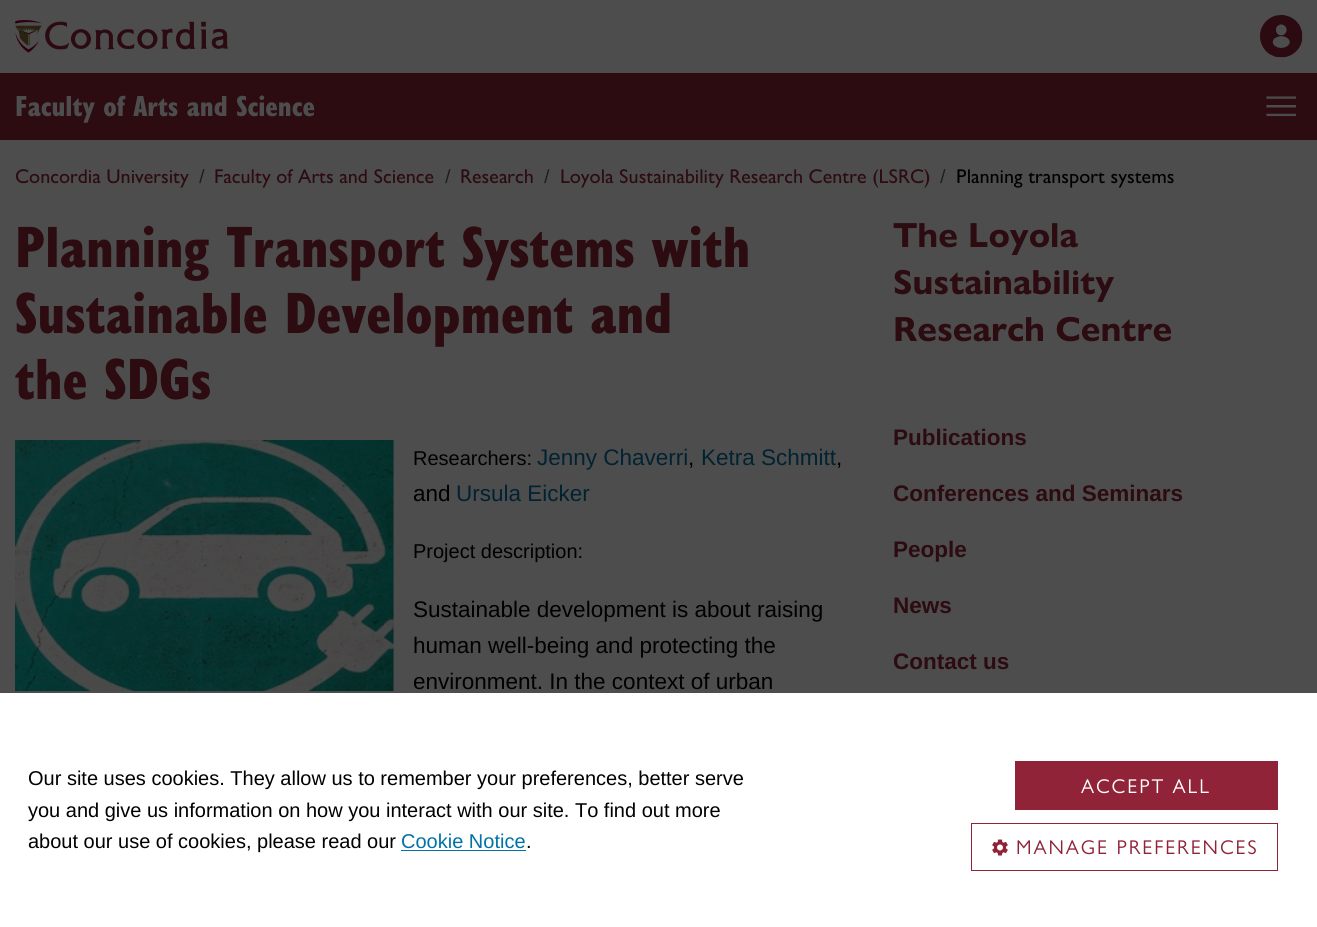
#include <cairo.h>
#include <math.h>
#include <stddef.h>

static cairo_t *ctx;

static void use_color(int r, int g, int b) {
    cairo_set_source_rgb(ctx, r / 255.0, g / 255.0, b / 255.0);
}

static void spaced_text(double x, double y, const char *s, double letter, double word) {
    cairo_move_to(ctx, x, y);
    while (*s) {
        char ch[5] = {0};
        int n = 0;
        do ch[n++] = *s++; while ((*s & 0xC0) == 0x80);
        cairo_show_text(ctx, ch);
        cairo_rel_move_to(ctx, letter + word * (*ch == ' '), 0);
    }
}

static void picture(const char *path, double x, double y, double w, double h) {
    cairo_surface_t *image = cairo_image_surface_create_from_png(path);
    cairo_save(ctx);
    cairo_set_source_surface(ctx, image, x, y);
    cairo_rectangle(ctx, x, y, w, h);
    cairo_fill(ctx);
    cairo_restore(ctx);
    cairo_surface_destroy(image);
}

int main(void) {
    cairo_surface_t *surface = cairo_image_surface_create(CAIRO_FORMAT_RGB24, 1317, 927);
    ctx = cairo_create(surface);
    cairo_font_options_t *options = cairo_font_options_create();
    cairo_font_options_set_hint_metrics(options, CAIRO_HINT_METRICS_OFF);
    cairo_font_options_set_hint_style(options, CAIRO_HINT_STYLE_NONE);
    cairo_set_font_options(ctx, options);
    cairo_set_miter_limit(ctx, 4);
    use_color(77, 77, 77);
    cairo_paint(ctx);
    picture("img1.png", 15, 20, 214, 33);
    picture("img2.png", 1260, 15, 43, 43);
    use_color(44, 11, 17);
    cairo_rectangle(ctx, 0, 73, 1317, 67);
    cairo_fill(ctx);
    cairo_select_font_face(ctx, "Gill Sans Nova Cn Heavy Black", CAIRO_FONT_SLANT_NORMAL, CAIRO_FONT_WEIGHT_NORMAL);
    cairo_set_font_size(ctx, 30);
    use_color(77, 77, 77);
    cairo_move_to(ctx, 15, 116);
    cairo_show_text(ctx, "Faculty of Arts and Science");
    picture("img3.png", 1266, 96, 31, 21);
    cairo_select_font_face(ctx, "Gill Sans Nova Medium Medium", CAIRO_FONT_SLANT_NORMAL, CAIRO_FONT_WEIGHT_NORMAL);
    cairo_set_font_size(ctx, 20);
    use_color(44, 11, 17);
    cairo_move_to(ctx, 15, 183);
    cairo_show_text(ctx, "Concordia University");
    use_color(27, 28, 29);
    cairo_move_to(ctx, 199, 183);
    cairo_show_text(ctx, "/");
    use_color(44, 11, 17);
    cairo_move_to(ctx, 214, 183);
    cairo_show_text(ctx, "Faculty of Arts and Science");
    use_color(27, 28, 29);
    cairo_move_to(ctx, 445, 183);
    cairo_show_text(ctx, "/");
    use_color(44, 11, 17);
    cairo_move_to(ctx, 460, 183);
    cairo_show_text(ctx, "Research");
    use_color(27, 28, 29);
    cairo_move_to(ctx, 544, 183);
    cairo_show_text(ctx, "/");
    use_color(44, 11, 17);
    cairo_move_to(ctx, 560, 183);
    cairo_show_text(ctx, "Loyola Sustainability Research Centre (LSRC)");
    use_color(27, 28, 29);
    cairo_move_to(ctx, 940, 183);
    cairo_show_text(ctx, "/");
    use_color(0, 0, 0);
    cairo_move_to(ctx, 956, 183);
    cairo_show_text(ctx, "Planning transport systems");
    cairo_select_font_face(ctx, "Gill Sans Nova Cn Heavy Black", CAIRO_FONT_SLANT_NORMAL, CAIRO_FONT_WEIGHT_NORMAL);
    cairo_set_font_size(ctx, 60);
    use_color(44, 11, 17);
    cairo_move_to(ctx, 15, 267);
    cairo_show_text(ctx, "Planning Transport Systems with");
    cairo_move_to(ctx, 15, 333);
    cairo_show_text(ctx, "Sustainable Development and");
    cairo_move_to(ctx, 15, 399);
    cairo_show_text(ctx, "the SDGs");
    picture("img4.png", 15, 440, 379, 252);
    cairo_select_font_face(ctx, "Liberation Sans", CAIRO_FONT_SLANT_NORMAL, CAIRO_FONT_WEIGHT_NORMAL);
    cairo_set_font_size(ctx, 20);
    use_color(0, 0, 0);
    cairo_move_to(ctx, 413, 465);
    cairo_show_text(ctx, "Researchers:");
    cairo_set_font_size(ctx, 22.5);
    use_color(0, 34, 50);
    cairo_move_to(ctx, 537, 465);
    cairo_show_text(ctx, "Jenny Chaverri");
    use_color(0, 0, 0);
    cairo_move_to(ctx, 688, 465);
    cairo_show_text(ctx, ",");
    use_color(0, 34, 50);
    cairo_move_to(ctx, 701, 465);
    cairo_show_text(ctx, "Ketra Schmitt");
    use_color(0, 0, 0);
    cairo_move_to(ctx, 836, 465);
    cairo_show_text(ctx, ",");
    cairo_move_to(ctx, 413, 501);
    cairo_show_text(ctx, "and");
    use_color(0, 34, 50);
    cairo_move_to(ctx, 456, 501);
    cairo_show_text(ctx, "Ursula Eicker");
    cairo_set_font_size(ctx, 20);
    use_color(0, 0, 0);
    cairo_move_to(ctx, 413, 558);
    cairo_show_text(ctx, "Project description:");
    cairo_set_font_size(ctx, 22.5);
    cairo_move_to(ctx, 413, 617);
    cairo_show_text(ctx, "Sustainable development is about raising");
    cairo_move_to(ctx, 413, 653);
    cairo_show_text(ctx, "human well-being and protecting the");
    cairo_move_to(ctx, 413, 689);
    cairo_show_text(ctx, "environment. In the context of urban");
    cairo_select_font_face(ctx, "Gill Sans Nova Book", CAIRO_FONT_SLANT_NORMAL, CAIRO_FONT_WEIGHT_BOLD);
    cairo_set_font_size(ctx, 35);
    use_color(44, 11, 17);
    cairo_move_to(ctx, 893, 247);
    cairo_show_text(ctx, "The Loyola");
    cairo_move_to(ctx, 893, 294);
    cairo_show_text(ctx, "Sustainability");
    cairo_move_to(ctx, 893, 341);
    cairo_show_text(ctx, "Research Centre");
    cairo_select_font_face(ctx, "Liberation Sans", CAIRO_FONT_SLANT_NORMAL, CAIRO_FONT_WEIGHT_BOLD);
    cairo_set_font_size(ctx, 22.5);
    cairo_move_to(ctx, 893, 445);
    cairo_show_text(ctx, "Publications");
    cairo_move_to(ctx, 893, 501);
    cairo_show_text(ctx, "Conferences and Seminars");
    cairo_move_to(ctx, 893, 557);
    cairo_show_text(ctx, "People");
    cairo_move_to(ctx, 893, 613);
    cairo_show_text(ctx, "News");
    cairo_move_to(ctx, 893, 669);
    cairo_show_text(ctx, "Contact us");
    use_color(255, 255, 255);
    cairo_rectangle(ctx, 0, 693, 1317, 234);
    cairo_fill(ctx);
    cairo_select_font_face(ctx, "Liberation Sans", CAIRO_FONT_SLANT_NORMAL, CAIRO_FONT_WEIGHT_NORMAL);
    cairo_set_font_size(ctx, 20);
    use_color(0, 0, 0);
    cairo_move_to(ctx, 28, 785);
    cairo_show_text(ctx, "Our site uses cookies. They allow us to remember your preferences, better serve");
    cairo_move_to(ctx, 28, 817);
    cairo_show_text(ctx, "you and give us information on how you interact with our site. To find out more");
    cairo_move_to(ctx, 28, 848);
    cairo_show_text(ctx, "about our use of cookies, please read our");
    use_color(0, 114, 168);
    cairo_move_to(ctx, 401, 848);
    cairo_show_text(ctx, "Cookie Notice");
    cairo_rectangle(ctx, 401, 850, 125, 1);
    cairo_fill(ctx);
    use_color(0, 0, 0);
    cairo_move_to(ctx, 526, 848);
    cairo_show_text(ctx, ".");
    use_color(145, 35, 56);
    cairo_rectangle(ctx, 1015, 761, 263, 49);
    cairo_fill(ctx);
    cairo_select_font_face(ctx, "Gill Sans Nova Book", CAIRO_FONT_SLANT_NORMAL, CAIRO_FONT_WEIGHT_NORMAL);
    use_color(255, 255, 255);
    spaced_text(1081, 793, "ACCEPT ALL", 1.9, 0);
    cairo_rectangle(ctx, 971.5, 823.5, 306, 47);
    use_color(145, 35, 56);
    cairo_set_line_width(ctx, 1);
    cairo_stroke(ctx);
    picture("img5.png", 992, 839, 16, 17);
    spaced_text(1016, 854, "MANAGE PREFERENCES", 1.9, 0);
    cairo_surface_write_to_png(surface, "result.png");
    cairo_font_options_destroy(options);
    cairo_destroy(ctx);
    cairo_surface_destroy(surface);
    return 0;
}
